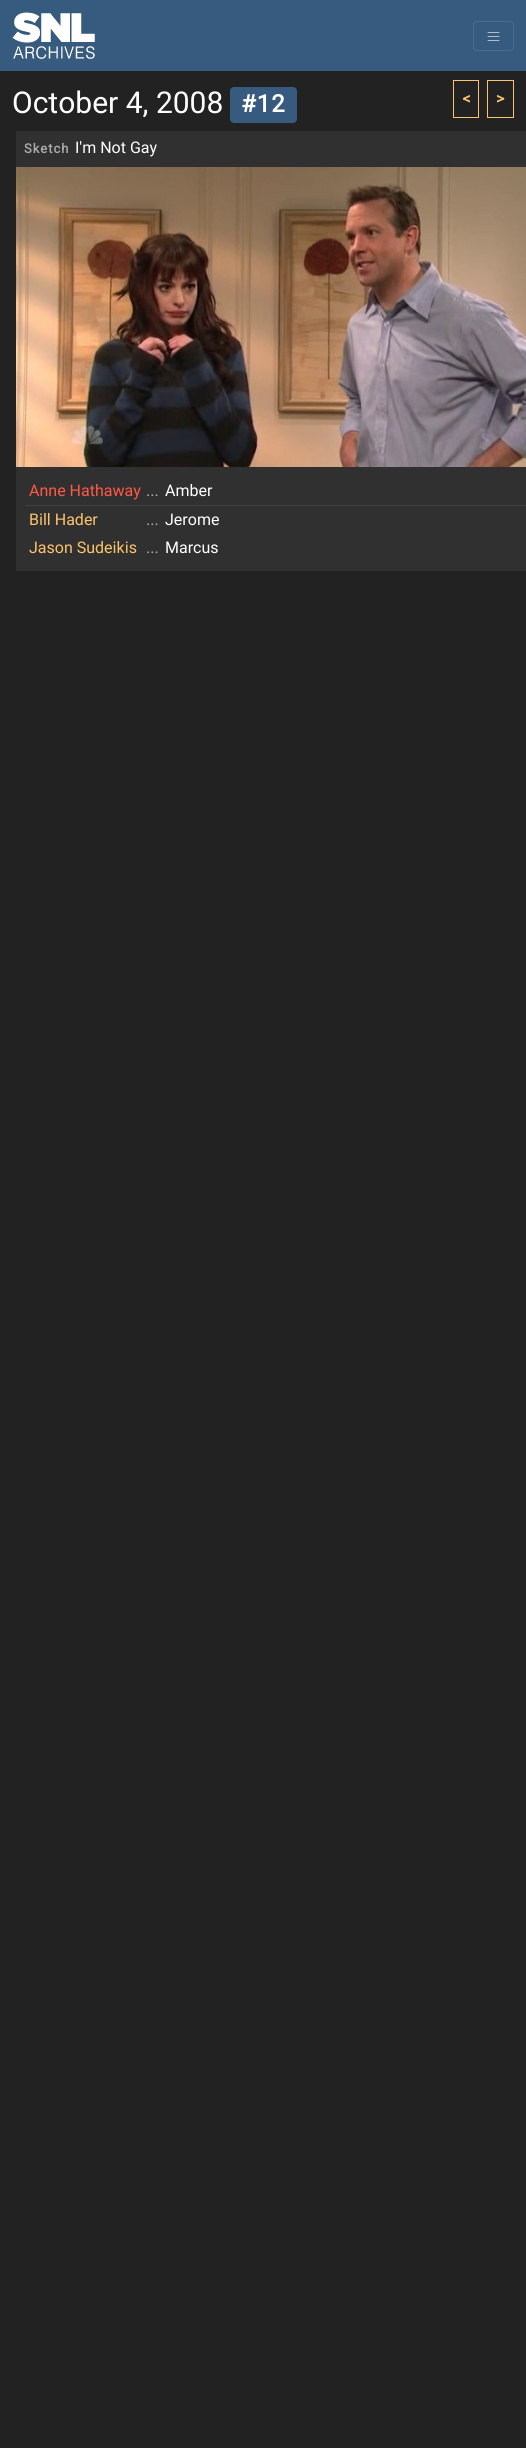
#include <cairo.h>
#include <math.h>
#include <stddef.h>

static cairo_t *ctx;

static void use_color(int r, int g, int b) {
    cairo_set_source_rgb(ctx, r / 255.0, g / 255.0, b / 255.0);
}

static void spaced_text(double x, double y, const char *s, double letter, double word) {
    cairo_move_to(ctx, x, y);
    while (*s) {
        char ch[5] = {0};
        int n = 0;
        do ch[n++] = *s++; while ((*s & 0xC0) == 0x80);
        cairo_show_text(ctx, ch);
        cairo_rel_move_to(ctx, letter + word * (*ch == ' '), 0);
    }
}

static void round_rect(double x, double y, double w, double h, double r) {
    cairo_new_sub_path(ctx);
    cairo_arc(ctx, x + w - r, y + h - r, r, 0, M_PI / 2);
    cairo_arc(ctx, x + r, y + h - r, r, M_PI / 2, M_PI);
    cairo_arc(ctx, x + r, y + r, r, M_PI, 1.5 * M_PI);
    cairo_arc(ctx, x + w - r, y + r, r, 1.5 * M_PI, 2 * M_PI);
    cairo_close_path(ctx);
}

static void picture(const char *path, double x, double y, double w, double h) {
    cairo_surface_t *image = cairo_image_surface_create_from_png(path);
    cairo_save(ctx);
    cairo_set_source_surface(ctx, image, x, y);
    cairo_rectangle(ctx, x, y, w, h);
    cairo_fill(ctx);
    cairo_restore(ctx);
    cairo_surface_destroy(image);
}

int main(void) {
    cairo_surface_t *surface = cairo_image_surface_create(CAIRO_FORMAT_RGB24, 526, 2448);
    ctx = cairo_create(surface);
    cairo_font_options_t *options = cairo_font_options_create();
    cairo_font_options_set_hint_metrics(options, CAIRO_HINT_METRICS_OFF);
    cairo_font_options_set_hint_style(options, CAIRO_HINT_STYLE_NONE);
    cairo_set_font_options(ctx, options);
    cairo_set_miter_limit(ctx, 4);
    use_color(34, 34, 34);
    cairo_paint(ctx);
    use_color(55, 90, 127);
    cairo_rectangle(ctx, 0, 0, 526, 71);
    cairo_fill(ctx);
    picture("img1.png", 12, 12, 83, 47);
    round_rect(473.5, 21.5, 40, 29, 3.5);
    use_color(75, 107, 140);
    cairo_set_line_width(ctx, 1);
    cairo_stroke(ctx);
    picture("img2.png", 487, 32, 13, 9);
    cairo_select_font_face(ctx, "Heebo", CAIRO_FONT_SLANT_NORMAL, CAIRO_FONT_WEIGHT_NORMAL);
    cairo_set_font_size(ctx, 30);
    use_color(255, 255, 255);
    cairo_move_to(ctx, 12, 113);
    cairo_show_text(ctx, "October 4, 2008");
    use_color(55, 90, 127);
    round_rect(230, 87, 67, 36, 4);
    cairo_fill(ctx);
    cairo_select_font_face(ctx, "Heebo", CAIRO_FONT_SLANT_NORMAL, CAIRO_FONT_WEIGHT_BOLD);
    cairo_set_font_size(ctx, 24);
    use_color(255, 255, 255);
    spaced_text(241, 112, "#12", 1, 0);
    cairo_rectangle(ctx, 453.5, 80.5, 25, 37);
    use_color(252, 195, 109);
    cairo_stroke(ctx);
    cairo_set_font_size(ctx, 16);
    cairo_move_to(ctx, 462, 104);
    cairo_show_text(ctx, "<");
    cairo_rectangle(ctx, 487.5, 80.5, 26, 37);
    cairo_stroke(ctx);
    cairo_move_to(ctx, 496, 104);
    cairo_show_text(ctx, ">");
    use_color(48, 48, 48);
    cairo_rectangle(ctx, 16, 131, 510, 440);
    cairo_fill(ctx);
    cairo_set_font_size(ctx, 13);
    use_color(170, 170, 170);
    spaced_text(24, 153, "Sketch", 1, 0);
    cairo_select_font_face(ctx, "Heebo", CAIRO_FONT_SLANT_NORMAL, CAIRO_FONT_WEIGHT_NORMAL);
    cairo_set_font_size(ctx, 16);
    use_color(255, 255, 255);
    cairo_move_to(ctx, 75, 153);
    cairo_show_text(ctx, "I'm Not Gay");
    picture("img3.png", 16, 167, 510, 300);
    use_color(255, 88, 70);
    cairo_move_to(ctx, 29, 496);
    cairo_show_text(ctx, "Anne Hathaway");
    use_color(170, 170, 170);
    cairo_move_to(ctx, 146, 496);
    cairo_show_text(ctx, "...");
    use_color(255, 255, 255);
    cairo_move_to(ctx, 165, 496);
    cairo_show_text(ctx, "Amber");
    use_color(64, 64, 64);
    cairo_rectangle(ctx, 25, 505, 501, 1);
    cairo_fill(ctx);
    use_color(252, 195, 109);
    cairo_move_to(ctx, 29, 525);
    cairo_show_text(ctx, "Bill Hader");
    use_color(170, 170, 170);
    cairo_move_to(ctx, 146, 525);
    cairo_show_text(ctx, "...");
    use_color(255, 255, 255);
    cairo_move_to(ctx, 165, 525);
    cairo_show_text(ctx, "Jerome");
    use_color(252, 195, 109);
    cairo_move_to(ctx, 29, 553);
    cairo_show_text(ctx, "Jason Sudeikis");
    use_color(170, 170, 170);
    cairo_move_to(ctx, 146, 553);
    cairo_show_text(ctx, "...");
    use_color(255, 255, 255);
    cairo_move_to(ctx, 165, 553);
    cairo_show_text(ctx, "Marcus");
    cairo_surface_write_to_png(surface, "result.png");
    cairo_font_options_destroy(options);
    cairo_destroy(ctx);
    cairo_surface_destroy(surface);
    return 0;
}
